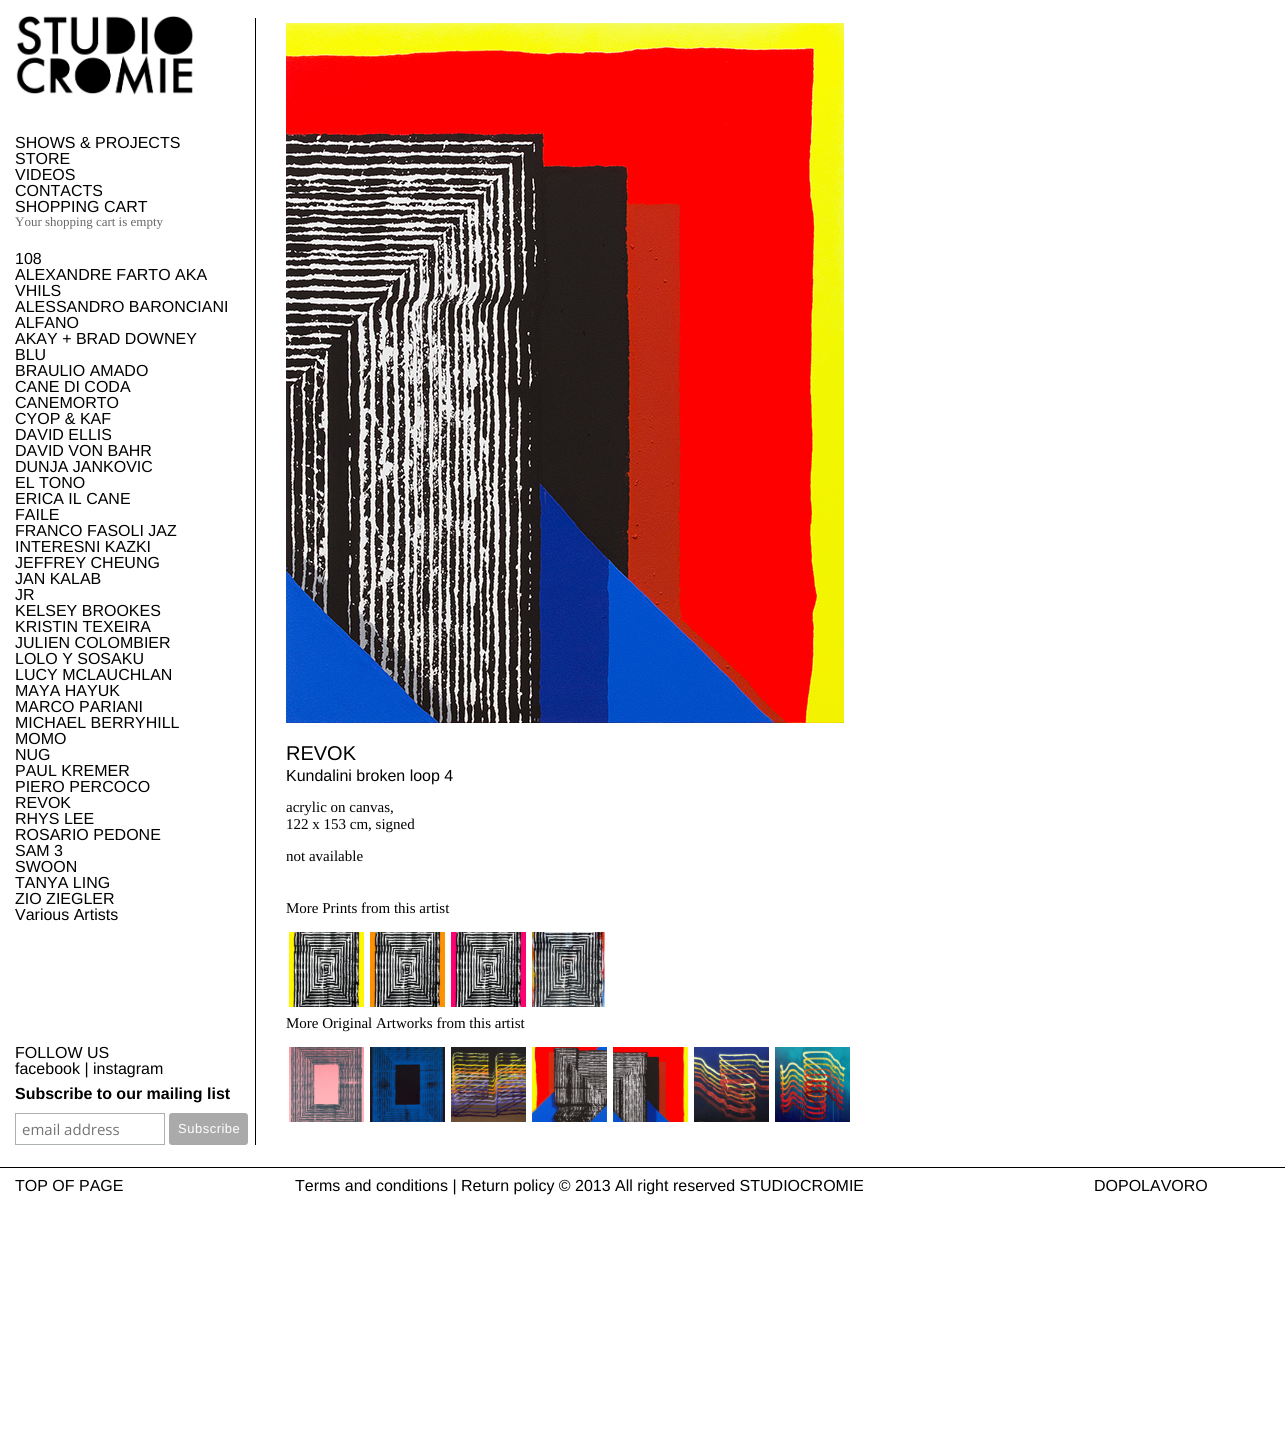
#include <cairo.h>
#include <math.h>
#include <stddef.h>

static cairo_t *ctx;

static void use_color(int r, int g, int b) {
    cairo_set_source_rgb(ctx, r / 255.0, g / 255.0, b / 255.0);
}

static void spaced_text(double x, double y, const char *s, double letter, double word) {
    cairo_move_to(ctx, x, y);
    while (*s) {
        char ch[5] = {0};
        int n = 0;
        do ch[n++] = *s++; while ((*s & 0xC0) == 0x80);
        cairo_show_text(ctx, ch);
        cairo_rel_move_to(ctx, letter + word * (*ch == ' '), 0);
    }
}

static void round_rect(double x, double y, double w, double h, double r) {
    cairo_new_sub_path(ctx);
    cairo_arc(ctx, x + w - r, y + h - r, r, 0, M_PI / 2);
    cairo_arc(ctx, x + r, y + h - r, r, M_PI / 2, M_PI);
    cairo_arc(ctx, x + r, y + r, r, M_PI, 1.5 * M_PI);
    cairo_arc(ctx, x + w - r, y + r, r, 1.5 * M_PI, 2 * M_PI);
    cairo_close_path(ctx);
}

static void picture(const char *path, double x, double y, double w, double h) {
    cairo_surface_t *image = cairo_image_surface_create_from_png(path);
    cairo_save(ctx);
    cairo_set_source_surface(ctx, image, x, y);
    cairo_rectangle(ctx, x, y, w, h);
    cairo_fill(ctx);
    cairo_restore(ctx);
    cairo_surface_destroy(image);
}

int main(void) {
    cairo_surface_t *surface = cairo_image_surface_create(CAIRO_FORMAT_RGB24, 1285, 1449);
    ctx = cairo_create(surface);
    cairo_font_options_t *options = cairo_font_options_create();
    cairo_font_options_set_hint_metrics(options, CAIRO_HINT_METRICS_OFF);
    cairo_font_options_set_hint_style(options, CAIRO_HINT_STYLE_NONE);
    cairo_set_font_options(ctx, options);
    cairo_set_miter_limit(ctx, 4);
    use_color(255, 255, 255);
    cairo_paint(ctx);
    picture("img1.png", 16, 16, 178, 79);
    cairo_select_font_face(ctx, "Liberation Sans", CAIRO_FONT_SLANT_NORMAL, CAIRO_FONT_WEIGHT_NORMAL);
    cairo_set_font_size(ctx, 16);
    use_color(0, 0, 0);
    cairo_move_to(ctx, 15, 148);
    cairo_show_text(ctx, "SHOWS & PROJECTS");
    cairo_move_to(ctx, 15, 164);
    cairo_show_text(ctx, "STORE");
    cairo_move_to(ctx, 15, 180);
    cairo_show_text(ctx, "VIDEOS");
    cairo_move_to(ctx, 15, 196);
    cairo_show_text(ctx, "CONTACTS");
    cairo_move_to(ctx, 15, 212);
    cairo_show_text(ctx, "SHOPPING CART");
    cairo_select_font_face(ctx, "Liberation Serif", CAIRO_FONT_SLANT_NORMAL, CAIRO_FONT_WEIGHT_NORMAL);
    cairo_set_font_size(ctx, 13);
    use_color(102, 102, 102);
    cairo_move_to(ctx, 15, 226);
    cairo_show_text(ctx, "Your shopping cart is empty");
    cairo_select_font_face(ctx, "Liberation Sans", CAIRO_FONT_SLANT_NORMAL, CAIRO_FONT_WEIGHT_NORMAL);
    cairo_set_font_size(ctx, 16);
    use_color(0, 0, 0);
    cairo_move_to(ctx, 15, 264);
    cairo_show_text(ctx, "108");
    cairo_move_to(ctx, 15, 280);
    cairo_show_text(ctx, "ALEXANDRE FARTO AKA");
    cairo_move_to(ctx, 15, 296);
    cairo_show_text(ctx, "VHILS");
    cairo_move_to(ctx, 15, 312);
    cairo_show_text(ctx, "ALESSANDRO BARONCIANI");
    cairo_move_to(ctx, 15, 328);
    cairo_show_text(ctx, "ALFANO");
    cairo_move_to(ctx, 15, 344);
    cairo_show_text(ctx, "AKAY + BRAD DOWNEY");
    cairo_move_to(ctx, 15, 360);
    cairo_show_text(ctx, "BLU");
    cairo_move_to(ctx, 15, 376);
    cairo_show_text(ctx, "BRAULIO AMADO");
    cairo_move_to(ctx, 15, 392);
    cairo_show_text(ctx, "CANE DI CODA");
    cairo_move_to(ctx, 15, 408);
    cairo_show_text(ctx, "CANEMORTO");
    cairo_move_to(ctx, 15, 424);
    cairo_show_text(ctx, "CYOP & KAF");
    cairo_move_to(ctx, 15, 440);
    cairo_show_text(ctx, "DAVID ELLIS");
    cairo_move_to(ctx, 15, 456);
    cairo_show_text(ctx, "DAVID VON BAHR");
    cairo_move_to(ctx, 15, 472);
    cairo_show_text(ctx, "DUNJA JANKOVIC");
    cairo_move_to(ctx, 15, 488);
    cairo_show_text(ctx, "EL TONO");
    cairo_move_to(ctx, 15, 504);
    cairo_show_text(ctx, "ERICA IL CANE");
    cairo_move_to(ctx, 15, 520);
    cairo_show_text(ctx, "FAILE");
    cairo_move_to(ctx, 15, 536);
    cairo_show_text(ctx, "FRANCO FASOLI JAZ");
    cairo_move_to(ctx, 15, 552);
    cairo_show_text(ctx, "INTERESNI KAZKI");
    cairo_move_to(ctx, 15, 568);
    cairo_show_text(ctx, "JEFFREY CHEUNG");
    cairo_move_to(ctx, 15, 584);
    cairo_show_text(ctx, "JAN KALAB");
    cairo_move_to(ctx, 15, 600);
    cairo_show_text(ctx, "JR");
    cairo_move_to(ctx, 15, 616);
    cairo_show_text(ctx, "KELSEY BROOKES");
    cairo_move_to(ctx, 15, 632);
    cairo_show_text(ctx, "KRISTIN TEXEIRA");
    cairo_move_to(ctx, 15, 648);
    cairo_show_text(ctx, "JULIEN COLOMBIER");
    cairo_move_to(ctx, 15, 664);
    cairo_show_text(ctx, "LOLO Y SOSAKU");
    cairo_move_to(ctx, 15, 680);
    cairo_show_text(ctx, "LUCY MCLAUCHLAN");
    cairo_move_to(ctx, 15, 696);
    cairo_show_text(ctx, "MAYA HAYUK");
    cairo_move_to(ctx, 15, 712);
    cairo_show_text(ctx, "MARCO PARIANI");
    cairo_move_to(ctx, 15, 728);
    cairo_show_text(ctx, "MICHAEL BERRYHILL");
    cairo_move_to(ctx, 15, 744);
    cairo_show_text(ctx, "MOMO");
    cairo_move_to(ctx, 15, 760);
    cairo_show_text(ctx, "NUG");
    cairo_move_to(ctx, 15, 776);
    cairo_show_text(ctx, "PAUL KREMER");
    cairo_move_to(ctx, 15, 792);
    cairo_show_text(ctx, "PIERO PERCOCO");
    cairo_move_to(ctx, 15, 808);
    cairo_show_text(ctx, "REVOK");
    cairo_move_to(ctx, 15, 824);
    cairo_show_text(ctx, "RHYS LEE");
    cairo_move_to(ctx, 15, 840);
    cairo_show_text(ctx, "ROSARIO PEDONE");
    cairo_move_to(ctx, 15, 856);
    cairo_show_text(ctx, "SAM 3");
    cairo_move_to(ctx, 15, 872);
    cairo_show_text(ctx, "SWOON");
    cairo_move_to(ctx, 15, 888);
    cairo_show_text(ctx, "TANYA LING");
    cairo_move_to(ctx, 15, 904);
    cairo_show_text(ctx, "ZIO ZIEGLER");
    cairo_move_to(ctx, 15, 920);
    cairo_show_text(ctx, "Various Artists");
    cairo_move_to(ctx, 15, 1058);
    cairo_show_text(ctx, "FOLLOW US");
    cairo_move_to(ctx, 15, 1074);
    cairo_show_text(ctx, "facebook | instagram");
    cairo_select_font_face(ctx, "Liberation Sans", CAIRO_FONT_SLANT_NORMAL, CAIRO_FONT_WEIGHT_BOLD);
    cairo_move_to(ctx, 15, 1099);
    cairo_show_text(ctx, "Subscribe to our mailing list");
    cairo_rectangle(ctx, 15.5, 1113.5, 149, 31);
    use_color(171, 176, 178);
    cairo_set_line_width(ctx, 1);
    cairo_stroke(ctx);
    cairo_select_font_face(ctx, "Open Sans", CAIRO_FONT_SLANT_NORMAL, CAIRO_FONT_WEIGHT_NORMAL);
    cairo_set_font_size(ctx, 15);
    use_color(117, 117, 117);
    cairo_move_to(ctx, 22, 1135);
    cairo_show_text(ctx, "email address");
    use_color(170, 170, 170);
    round_rect(169, 1113, 79, 32, 3);
    cairo_fill(ctx);
    cairo_select_font_face(ctx, "Liberation Sans", CAIRO_FONT_SLANT_NORMAL, CAIRO_FONT_WEIGHT_NORMAL);
    cairo_set_font_size(ctx, 13);
    use_color(255, 255, 255);
    spaced_text(178, 1133, "Subscribe", 0.5, 0);
    use_color(0, 0, 0);
    cairo_rectangle(ctx, 255, 18, 1, 1127);
    cairo_fill(ctx);
    picture("img2.png", 286, 23, 558, 700);
    cairo_set_font_size(ctx, 20);
    cairo_move_to(ctx, 286, 760);
    cairo_show_text(ctx, "REVOK");
    cairo_set_font_size(ctx, 16);
    cairo_move_to(ctx, 286, 781);
    cairo_show_text(ctx, "Kundalini broken loop 4");
    cairo_select_font_face(ctx, "Liberation Serif", CAIRO_FONT_SLANT_NORMAL, CAIRO_FONT_WEIGHT_NORMAL);
    cairo_set_font_size(ctx, 15);
    cairo_move_to(ctx, 286, 812);
    cairo_show_text(ctx, "acrylic on canvas,");
    cairo_move_to(ctx, 286, 829);
    cairo_show_text(ctx, "122 x 153 cm, signed");
    cairo_move_to(ctx, 286, 861);
    cairo_show_text(ctx, "not available");
    cairo_move_to(ctx, 286, 913);
    cairo_show_text(ctx, "More Prints from this artist");
    picture("img3.png", 289, 932, 75, 75);
    picture("img4.png", 370, 932, 75, 75);
    picture("img5.png", 451, 932, 75, 75);
    picture("img6.png", 532, 932, 75, 75);
    cairo_move_to(ctx, 286, 1028);
    cairo_show_text(ctx, "More Original Artworks from this artist");
    picture("img7.png", 289, 1047, 75, 75);
    picture("img8.png", 370, 1047, 75, 75);
    picture("img9.png", 451, 1047, 75, 75);
    picture("img10.png", 532, 1047, 75, 75);
    picture("img11.png", 613, 1047, 75, 75);
    picture("img12.png", 694, 1047, 75, 75);
    picture("img13.png", 775, 1047, 75, 75);
    cairo_rectangle(ctx, 0, 1167, 1285, 1);
    cairo_fill(ctx);
    cairo_select_font_face(ctx, "Liberation Sans", CAIRO_FONT_SLANT_NORMAL, CAIRO_FONT_WEIGHT_NORMAL);
    cairo_set_font_size(ctx, 16);
    cairo_move_to(ctx, 15, 1191);
    cairo_show_text(ctx, "TOP OF PAGE");
    cairo_move_to(ctx, 295, 1191);
    cairo_show_text(ctx, "Terms and conditions | Return policy © 2013 All right reserved STUDIOCROMIE");
    cairo_move_to(ctx, 1094, 1191);
    cairo_show_text(ctx, "DOPOLAVORO");
    cairo_surface_write_to_png(surface, "result.png");
    cairo_font_options_destroy(options);
    cairo_destroy(ctx);
    cairo_surface_destroy(surface);
    return 0;
}
